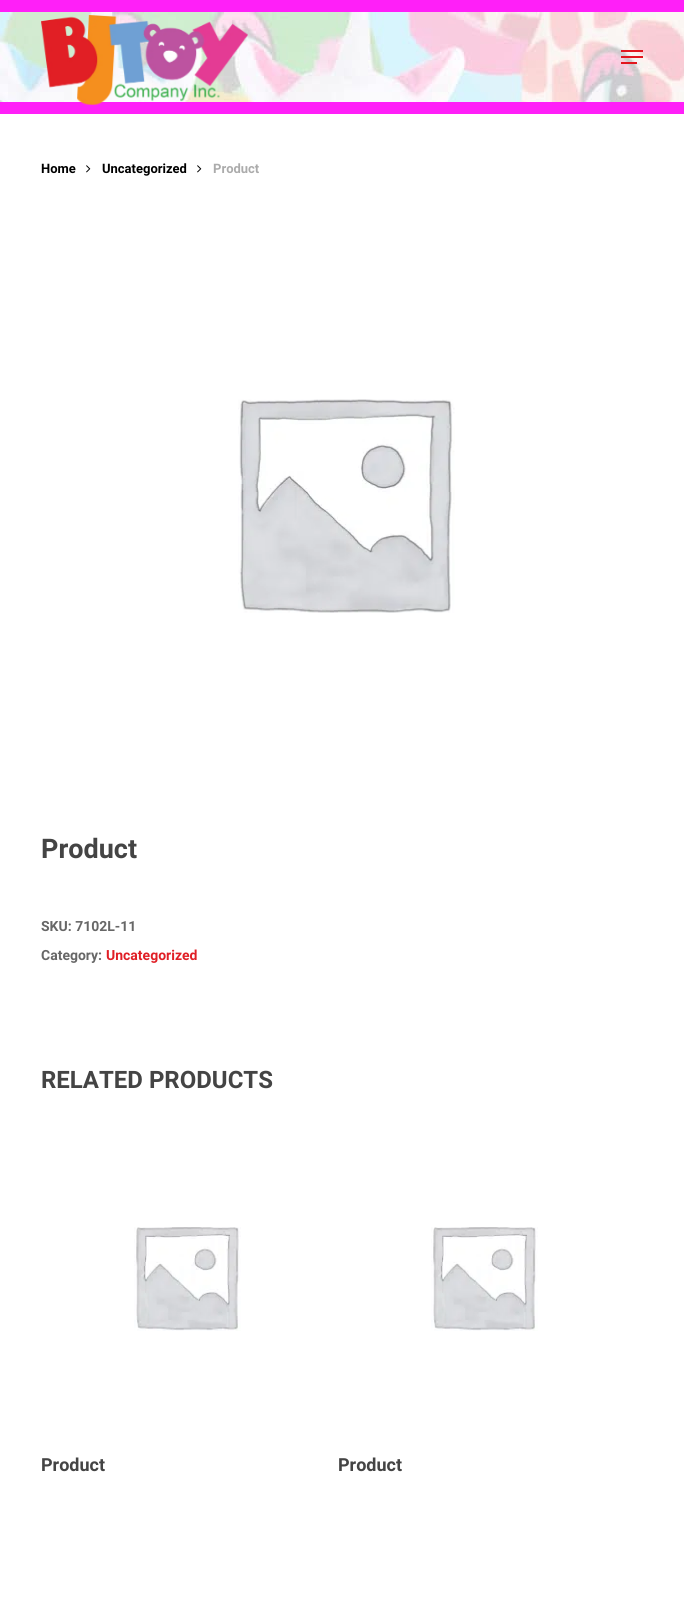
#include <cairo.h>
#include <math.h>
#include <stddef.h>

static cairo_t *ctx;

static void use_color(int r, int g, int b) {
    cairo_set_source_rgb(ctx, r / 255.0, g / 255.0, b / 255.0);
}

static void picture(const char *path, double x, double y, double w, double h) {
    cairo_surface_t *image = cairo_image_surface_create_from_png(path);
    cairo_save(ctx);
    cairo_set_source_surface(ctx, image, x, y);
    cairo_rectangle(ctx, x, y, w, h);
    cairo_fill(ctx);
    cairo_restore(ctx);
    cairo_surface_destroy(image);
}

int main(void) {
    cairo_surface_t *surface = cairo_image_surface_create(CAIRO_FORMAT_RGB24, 684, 1615);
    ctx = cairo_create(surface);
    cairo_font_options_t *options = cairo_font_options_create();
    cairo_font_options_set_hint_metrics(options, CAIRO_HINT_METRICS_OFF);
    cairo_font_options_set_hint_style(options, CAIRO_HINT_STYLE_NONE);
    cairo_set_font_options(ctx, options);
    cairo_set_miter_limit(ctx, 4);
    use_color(255, 255, 255);
    cairo_paint(ctx);
    use_color(255, 31, 248);
    cairo_rectangle(ctx, 0, 0, 684, 114);
    cairo_fill(ctx);
    picture("img1.png", 0, 12, 684, 90);
    picture("img2.png", 41, 15, 207, 90);
    use_color(226, 23, 31);
    cairo_rectangle(ctx, 621, 50, 22, 2);
    cairo_fill(ctx);
    cairo_rectangle(ctx, 621, 62, 16, 2);
    cairo_fill(ctx);
    cairo_rectangle(ctx, 621, 56, 22, 2);
    cairo_fill(ctx);
    cairo_select_font_face(ctx, "Roboto", CAIRO_FONT_SLANT_NORMAL, CAIRO_FONT_WEIGHT_BOLD);
    cairo_set_font_size(ctx, 13);
    use_color(0, 0, 0);
    cairo_move_to(ctx, 41, 173);
    cairo_show_text(ctx, "Home");
    picture("img3.png", 86, 165, 5, 8);
    cairo_move_to(ctx, 102, 173);
    cairo_show_text(ctx, "Uncategorized");
    picture("img3.png", 197, 165, 5, 8);
    use_color(171, 171, 171);
    cairo_move_to(ctx, 213, 173);
    cairo_show_text(ctx, "Product");
    picture("img4.png", 238, 399, 217, 214);
    cairo_set_font_size(ctx, 27);
    use_color(68, 68, 68);
    cairo_move_to(ctx, 41, 858);
    cairo_show_text(ctx, "Product");
    cairo_set_font_size(ctx, 14);
    use_color(103, 103, 103);
    cairo_move_to(ctx, 41, 931);
    cairo_show_text(ctx, "SKU: 7102L-11");
    cairo_move_to(ctx, 41, 960);
    cairo_show_text(ctx, "Category:");
    use_color(224, 31, 38);
    cairo_move_to(ctx, 106, 960);
    cairo_show_text(ctx, "Uncategorized");
    cairo_set_font_size(ctx, 24);
    use_color(68, 68, 68);
    cairo_move_to(ctx, 41, 1088);
    cairo_show_text(ctx, "RELATED PRODUCTS");
    picture("img5.png", 134, 1227, 107, 104);
    cairo_set_font_size(ctx, 18);
    cairo_move_to(ctx, 41, 1471);
    cairo_show_text(ctx, "Product");
    picture("img6.png", 431, 1227, 107, 104);
    cairo_move_to(ctx, 338, 1471);
    cairo_show_text(ctx, "Product");
    cairo_surface_write_to_png(surface, "result.png");
    cairo_font_options_destroy(options);
    cairo_destroy(ctx);
    cairo_surface_destroy(surface);
    return 0;
}
